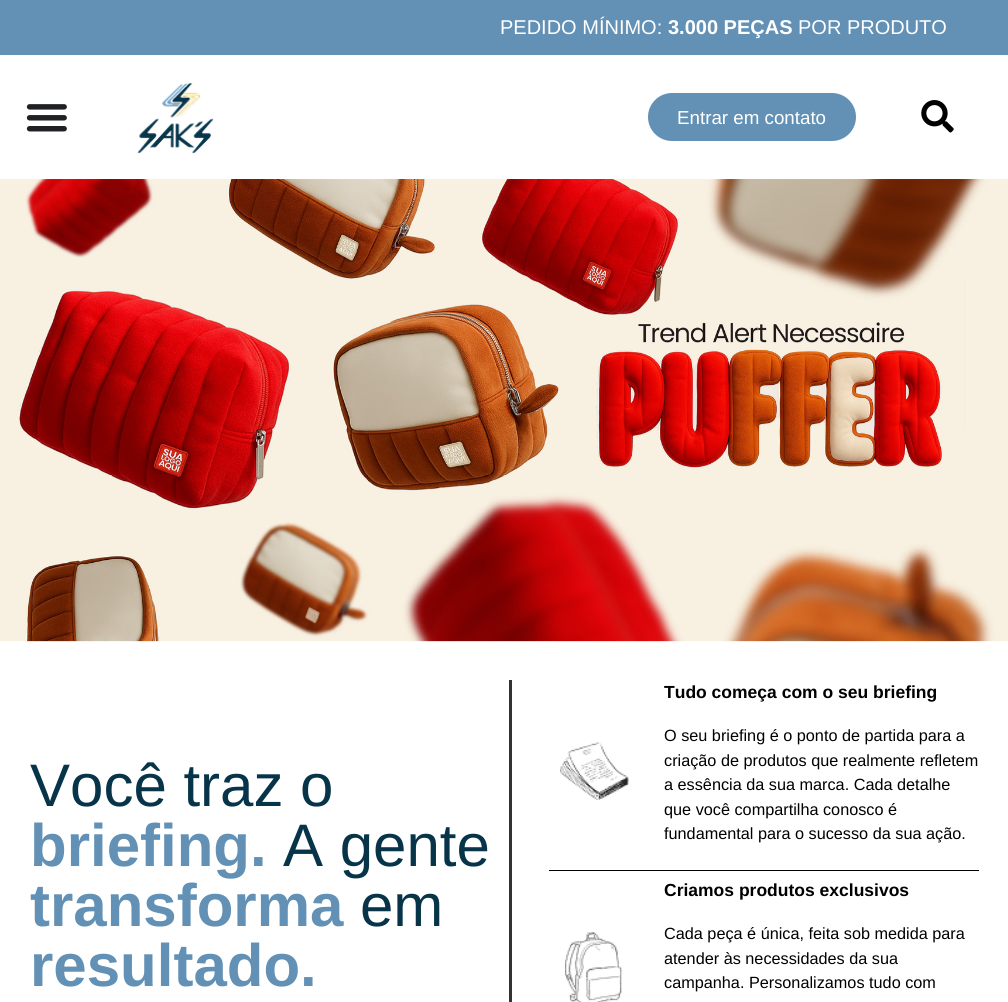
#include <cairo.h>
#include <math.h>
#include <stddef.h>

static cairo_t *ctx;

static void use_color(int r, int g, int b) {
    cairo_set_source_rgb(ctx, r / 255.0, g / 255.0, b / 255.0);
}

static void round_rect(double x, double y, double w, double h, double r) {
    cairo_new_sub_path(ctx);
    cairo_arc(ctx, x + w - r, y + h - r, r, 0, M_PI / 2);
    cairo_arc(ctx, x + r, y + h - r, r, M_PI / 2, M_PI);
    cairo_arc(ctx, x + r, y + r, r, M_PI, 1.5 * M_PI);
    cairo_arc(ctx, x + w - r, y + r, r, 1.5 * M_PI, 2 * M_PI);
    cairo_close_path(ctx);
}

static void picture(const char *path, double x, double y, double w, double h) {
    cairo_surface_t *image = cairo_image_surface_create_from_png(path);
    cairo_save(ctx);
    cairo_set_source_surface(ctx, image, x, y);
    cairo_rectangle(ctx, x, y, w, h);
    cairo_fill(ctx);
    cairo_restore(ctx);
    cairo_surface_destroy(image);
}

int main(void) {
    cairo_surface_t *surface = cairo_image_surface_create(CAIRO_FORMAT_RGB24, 1008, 1002);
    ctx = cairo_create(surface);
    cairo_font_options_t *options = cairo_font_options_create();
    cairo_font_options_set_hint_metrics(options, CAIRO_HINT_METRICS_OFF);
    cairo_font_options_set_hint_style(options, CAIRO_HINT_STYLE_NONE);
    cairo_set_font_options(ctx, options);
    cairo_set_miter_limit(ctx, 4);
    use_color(255, 255, 255);
    cairo_paint(ctx);
    use_color(98, 145, 181);
    cairo_rectangle(ctx, 0, 0, 1008, 55);
    cairo_fill(ctx);
    cairo_select_font_face(ctx, "Liberation Sans", CAIRO_FONT_SLANT_NORMAL, CAIRO_FONT_WEIGHT_NORMAL);
    cairo_set_font_size(ctx, 20);
    use_color(255, 255, 255);
    cairo_move_to(ctx, 500, 34);
    cairo_show_text(ctx, "PEDIDO MÍNIMO:");
    cairo_select_font_face(ctx, "Liberation Sans", CAIRO_FONT_SLANT_NORMAL, CAIRO_FONT_WEIGHT_BOLD);
    cairo_move_to(ctx, 668, 34);
    cairo_show_text(ctx, "3.000 PEÇAS");
    cairo_select_font_face(ctx, "Liberation Sans", CAIRO_FONT_SLANT_NORMAL, CAIRO_FONT_WEIGHT_NORMAL);
    cairo_move_to(ctx, 798, 34);
    cairo_show_text(ctx, "POR PRODUTO");
    picture("img1.png", 26, 104, 41, 28);
    picture("img2.png", 137, 83, 77, 71);
    use_color(98, 145, 181);
    round_rect(648, 93, 208, 48, 24);
    cairo_fill(ctx);
    cairo_set_font_size(ctx, 18.75);
    use_color(255, 255, 255);
    cairo_move_to(ctx, 677, 124);
    cairo_show_text(ctx, "Entrar em contato");
    picture("img3.png", 921, 100, 33, 33);
    picture("img4.png", 0, 179, 1008, 463);
    cairo_set_font_size(ctx, 60);
    use_color(7, 52, 73);
    cairo_move_to(ctx, 30, 806);
    cairo_show_text(ctx, "Você traz o");
    cairo_select_font_face(ctx, "Liberation Sans", CAIRO_FONT_SLANT_NORMAL, CAIRO_FONT_WEIGHT_BOLD);
    use_color(98, 145, 181);
    cairo_move_to(ctx, 30, 866);
    cairo_show_text(ctx, "briefing.");
    cairo_select_font_face(ctx, "Liberation Sans", CAIRO_FONT_SLANT_NORMAL, CAIRO_FONT_WEIGHT_NORMAL);
    use_color(7, 52, 73);
    cairo_move_to(ctx, 283, 866);
    cairo_show_text(ctx, "A gente");
    cairo_select_font_face(ctx, "Liberation Sans", CAIRO_FONT_SLANT_NORMAL, CAIRO_FONT_WEIGHT_BOLD);
    use_color(98, 145, 181);
    cairo_move_to(ctx, 30, 926);
    cairo_show_text(ctx, "transforma");
    cairo_select_font_face(ctx, "Liberation Sans", CAIRO_FONT_SLANT_NORMAL, CAIRO_FONT_WEIGHT_NORMAL);
    use_color(7, 52, 73);
    cairo_move_to(ctx, 360, 926);
    cairo_show_text(ctx, "em");
    cairo_select_font_face(ctx, "Liberation Sans", CAIRO_FONT_SLANT_NORMAL, CAIRO_FONT_WEIGHT_BOLD);
    use_color(98, 145, 181);
    cairo_move_to(ctx, 30, 986);
    cairo_show_text(ctx, "resultado.");
    use_color(51, 51, 51);
    cairo_rectangle(ctx, 509, 680, 3, 322);
    cairo_fill(ctx);
    picture("img5.png", 560, 742, 69, 58);
    cairo_set_font_size(ctx, 17.5);
    use_color(0, 0, 0);
    cairo_move_to(ctx, 664, 698);
    cairo_show_text(ctx, "Tudo começa com o seu briefing");
    cairo_select_font_face(ctx, "Liberation Sans", CAIRO_FONT_SLANT_NORMAL, CAIRO_FONT_WEIGHT_NORMAL);
    cairo_set_font_size(ctx, 16.25);
    cairo_move_to(ctx, 664, 741);
    cairo_show_text(ctx, "O seu briefing é o ponto de partida para a");
    cairo_move_to(ctx, 664, 766);
    cairo_show_text(ctx, "criação de produtos que realmente refletem");
    cairo_move_to(ctx, 664, 790);
    cairo_show_text(ctx, "a essência da sua marca. Cada detalhe");
    cairo_move_to(ctx, 664, 815);
    cairo_show_text(ctx, "que você compartilha conosco é");
    cairo_move_to(ctx, 664, 839);
    cairo_show_text(ctx, "fundamental para o sucesso da sua ação.");
    cairo_rectangle(ctx, 549, 870, 430, 1);
    cairo_fill(ctx);
    picture("img6.png", 565, 932, 58, 70);
    cairo_select_font_face(ctx, "Liberation Sans", CAIRO_FONT_SLANT_NORMAL, CAIRO_FONT_WEIGHT_BOLD);
    cairo_set_font_size(ctx, 17.5);
    cairo_move_to(ctx, 664, 896);
    cairo_show_text(ctx, "Criamos produtos exclusivos");
    cairo_select_font_face(ctx, "Liberation Sans", CAIRO_FONT_SLANT_NORMAL, CAIRO_FONT_WEIGHT_NORMAL);
    cairo_set_font_size(ctx, 16.25);
    cairo_move_to(ctx, 664, 939);
    cairo_show_text(ctx, "Cada peça é única, feita sob medida para");
    cairo_move_to(ctx, 664, 964);
    cairo_show_text(ctx, "atender às necessidades da sua");
    cairo_move_to(ctx, 664, 988);
    cairo_show_text(ctx, "campanha. Personalizamos tudo com");
    cairo_surface_write_to_png(surface, "result.png");
    cairo_font_options_destroy(options);
    cairo_destroy(ctx);
    cairo_surface_destroy(surface);
    return 0;
}
